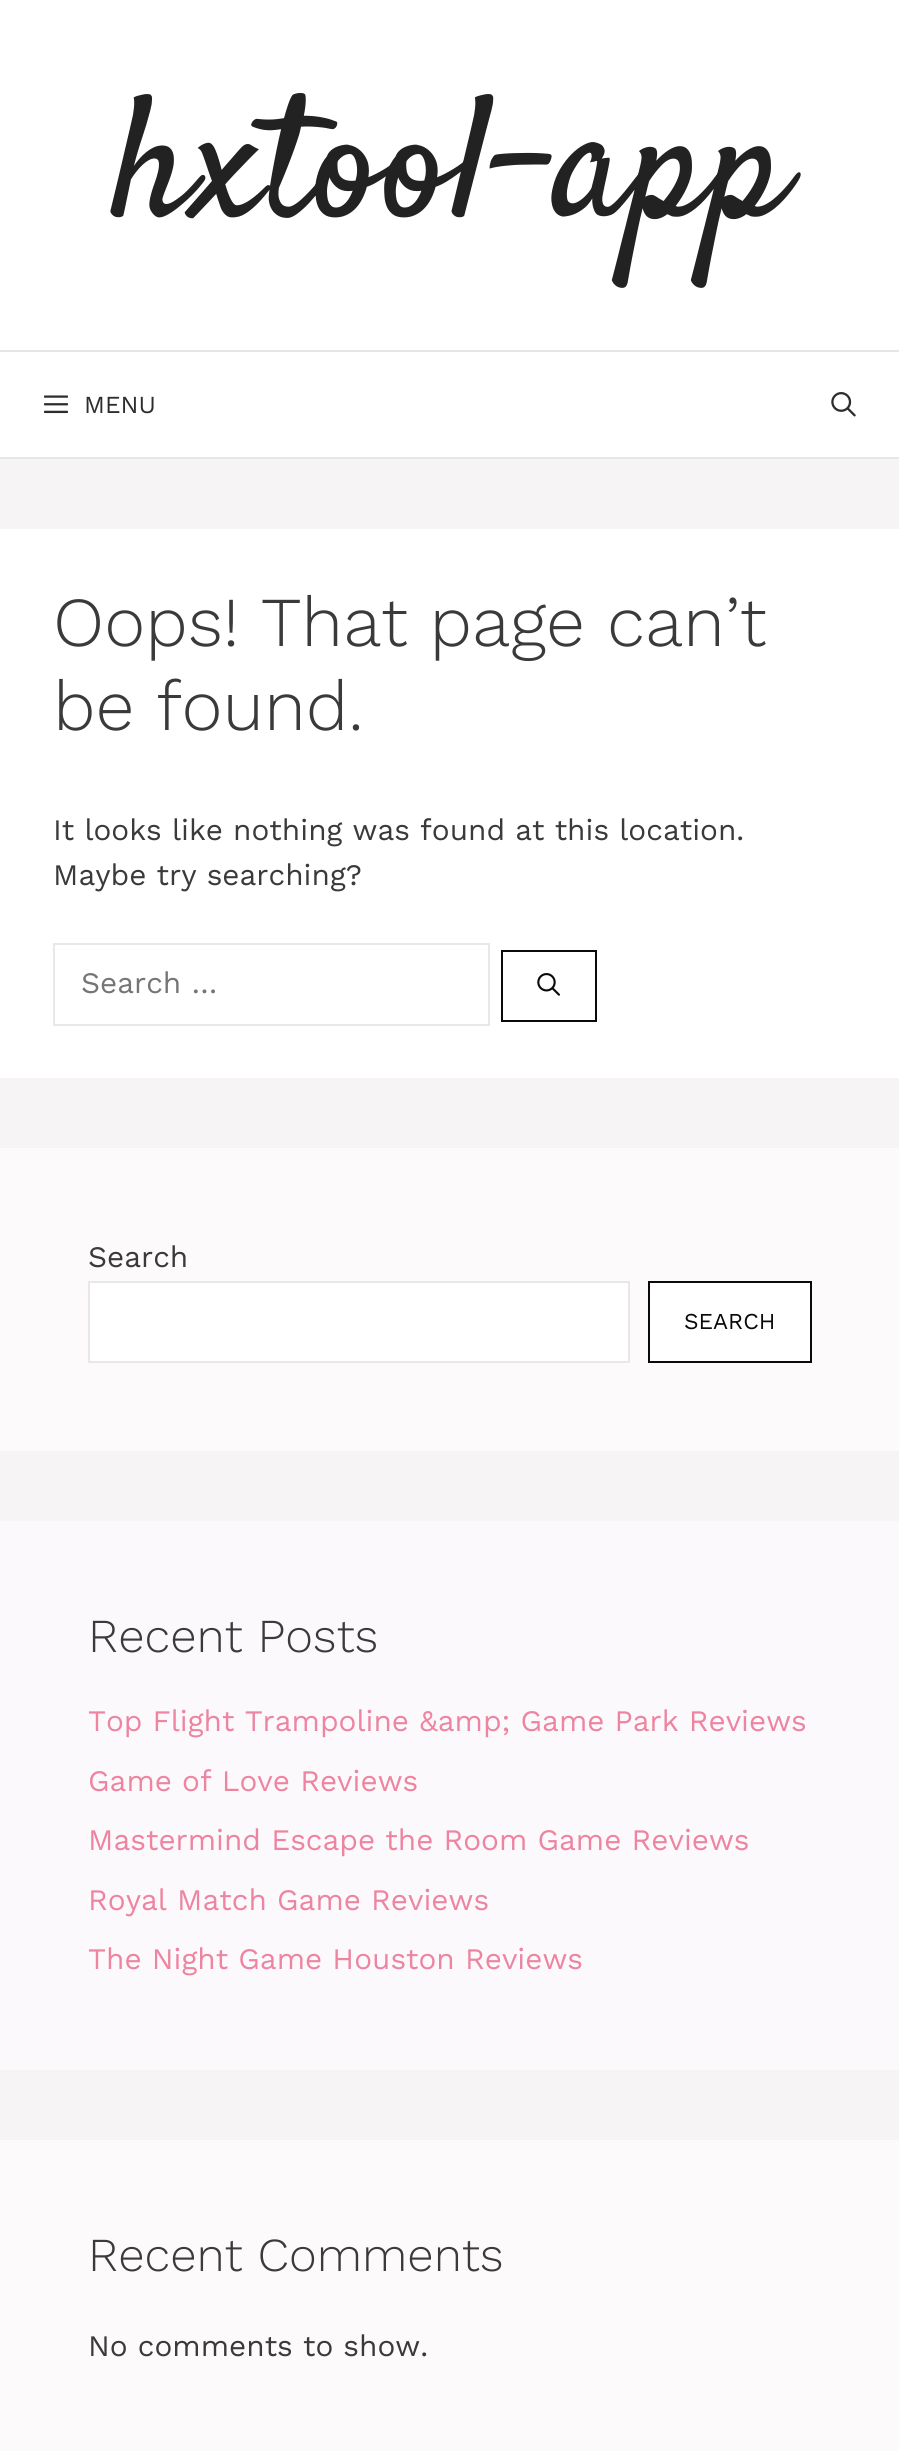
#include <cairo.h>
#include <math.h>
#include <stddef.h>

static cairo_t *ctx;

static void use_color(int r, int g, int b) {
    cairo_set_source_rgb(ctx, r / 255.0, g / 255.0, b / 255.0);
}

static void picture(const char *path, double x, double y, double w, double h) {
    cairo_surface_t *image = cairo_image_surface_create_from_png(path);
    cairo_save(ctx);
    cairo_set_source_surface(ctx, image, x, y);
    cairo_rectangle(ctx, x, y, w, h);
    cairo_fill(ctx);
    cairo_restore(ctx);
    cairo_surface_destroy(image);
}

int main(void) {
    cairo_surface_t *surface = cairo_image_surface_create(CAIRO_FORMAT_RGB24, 899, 2451);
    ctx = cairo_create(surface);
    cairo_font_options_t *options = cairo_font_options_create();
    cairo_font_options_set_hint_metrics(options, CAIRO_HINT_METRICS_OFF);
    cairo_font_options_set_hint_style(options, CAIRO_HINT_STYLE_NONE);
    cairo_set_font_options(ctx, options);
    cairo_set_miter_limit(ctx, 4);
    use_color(247, 244, 246);
    cairo_paint(ctx);
    use_color(255, 255, 255);
    cairo_rectangle(ctx, 0, 0, 899, 350);
    cairo_fill(ctx);
    cairo_select_font_face(ctx, "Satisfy", CAIRO_FONT_SLANT_NORMAL, CAIRO_FONT_WEIGHT_NORMAL);
    cairo_set_font_size(ctx, 175);
    use_color(34, 34, 34);
    cairo_move_to(ctx, 112, 214);
    cairo_show_text(ctx, "hxtool-app");
    use_color(255, 255, 255);
    cairo_rectangle(ctx, 0, 352, 899, 105);
    cairo_fill(ctx);
    use_color(230, 230, 230);
    cairo_rectangle(ctx, 0, 350, 899, 2);
    cairo_fill(ctx);
    cairo_rectangle(ctx, 0, 457, 899, 2);
    cairo_fill(ctx);
    picture("img1.png", 44, 395, 24, 19);
    cairo_select_font_face(ctx, "Work Sans", CAIRO_FONT_SLANT_NORMAL, CAIRO_FONT_WEIGHT_NORMAL);
    cairo_set_font_size(ctx, 24.5);
    use_color(45, 45, 45);
    cairo_move_to(ctx, 84, 413);
    cairo_show_text(ctx, "MENU");
    picture("img2.png", 831, 392, 25, 25);
    use_color(255, 255, 255);
    cairo_rectangle(ctx, 0, 529, 899, 549);
    cairo_fill(ctx);
    cairo_select_font_face(ctx, "Work Sans Light", CAIRO_FONT_SLANT_NORMAL, CAIRO_FONT_WEIGHT_NORMAL);
    cairo_set_font_size(ctx, 70);
    use_color(58, 58, 58);
    cairo_move_to(ctx, 53, 646);
    cairo_show_text(ctx, "Oops! That page can’t");
    cairo_move_to(ctx, 53, 730);
    cairo_show_text(ctx, "be found.");
    cairo_select_font_face(ctx, "Work Sans", CAIRO_FONT_SLANT_NORMAL, CAIRO_FONT_WEIGHT_NORMAL);
    cairo_set_font_size(ctx, 29.75);
    cairo_move_to(ctx, 53, 840);
    cairo_show_text(ctx, "It looks like nothing was found at this location.");
    cairo_move_to(ctx, 53, 885);
    cairo_show_text(ctx, "Maybe try searching?");
    cairo_rectangle(ctx, 54, 944, 435, 81);
    use_color(232, 232, 232);
    cairo_stroke(ctx);
    use_color(117, 117, 117);
    cairo_move_to(ctx, 81, 993);
    cairo_show_text(ctx, "Search …");
    cairo_rectangle(ctx, 502, 951, 94, 70);
    use_color(10, 10, 10);
    cairo_stroke(ctx);
    picture("img3.png", 537, 973, 23, 23);
    use_color(252, 250, 251);
    cairo_rectangle(ctx, 0, 1148, 899, 303);
    cairo_fill(ctx);
    use_color(58, 58, 58);
    cairo_move_to(ctx, 88, 1267);
    cairo_show_text(ctx, "Search");
    use_color(255, 255, 255);
    cairo_rectangle(ctx, 89, 1282, 540, 80);
    cairo_fill_preserve(ctx);
    use_color(232, 232, 232);
    cairo_stroke(ctx);
    use_color(255, 255, 255);
    cairo_rectangle(ctx, 649, 1282, 162, 80);
    cairo_fill_preserve(ctx);
    use_color(10, 10, 10);
    cairo_stroke(ctx);
    cairo_set_font_size(ctx, 22.75);
    cairo_move_to(ctx, 684, 1329);
    cairo_show_text(ctx, "SEARCH");
    use_color(252, 249, 252);
    cairo_rectangle(ctx, 0, 1521, 899, 549);
    cairo_fill(ctx);
    cairo_select_font_face(ctx, "Work Sans Light", CAIRO_FONT_SLANT_NORMAL, CAIRO_FONT_WEIGHT_NORMAL);
    cairo_set_font_size(ctx, 47.25);
    use_color(58, 58, 58);
    cairo_move_to(ctx, 88, 1652);
    cairo_show_text(ctx, "Recent Posts");
    cairo_select_font_face(ctx, "Work Sans", CAIRO_FONT_SLANT_NORMAL, CAIRO_FONT_WEIGHT_NORMAL);
    cairo_set_font_size(ctx, 29.75);
    use_color(237, 132, 160);
    cairo_move_to(ctx, 88, 1731);
    cairo_show_text(ctx, "Top Flight Trampoline &amp; Game Park Reviews");
    cairo_move_to(ctx, 88, 1791);
    cairo_show_text(ctx, "Game of Love Reviews");
    cairo_move_to(ctx, 88, 1850);
    cairo_show_text(ctx, "Mastermind Escape the Room Game Reviews");
    cairo_move_to(ctx, 88, 1910);
    cairo_show_text(ctx, "Royal Match Game Reviews");
    cairo_move_to(ctx, 88, 1969);
    cairo_show_text(ctx, "The Night Game Houston Reviews");
    use_color(252, 250, 251);
    cairo_rectangle(ctx, 0, 2140, 899, 311);
    cairo_fill(ctx);
    cairo_select_font_face(ctx, "Work Sans Light", CAIRO_FONT_SLANT_NORMAL, CAIRO_FONT_WEIGHT_NORMAL);
    cairo_set_font_size(ctx, 47.25);
    use_color(58, 58, 58);
    cairo_move_to(ctx, 88, 2271);
    cairo_show_text(ctx, "Recent Comments");
    cairo_select_font_face(ctx, "Work Sans", CAIRO_FONT_SLANT_NORMAL, CAIRO_FONT_WEIGHT_NORMAL);
    cairo_set_font_size(ctx, 29.75);
    cairo_move_to(ctx, 88, 2356);
    cairo_show_text(ctx, "No comments to show.");
    cairo_surface_write_to_png(surface, "result.png");
    cairo_font_options_destroy(options);
    cairo_destroy(ctx);
    cairo_surface_destroy(surface);
    return 0;
}
